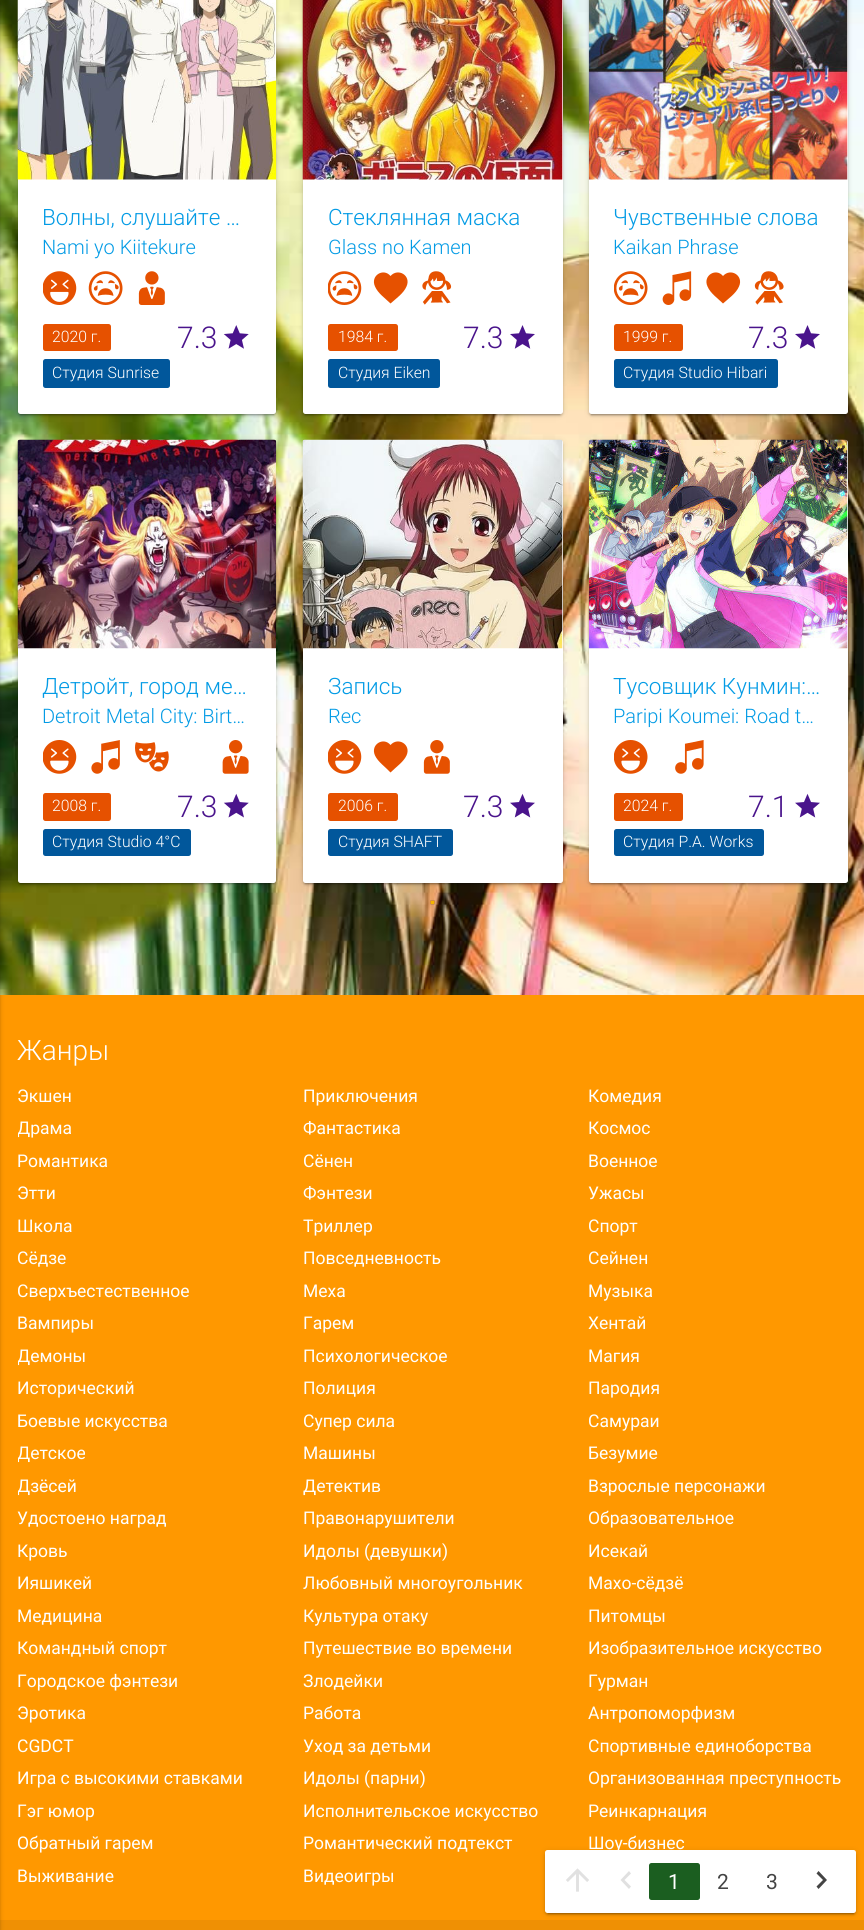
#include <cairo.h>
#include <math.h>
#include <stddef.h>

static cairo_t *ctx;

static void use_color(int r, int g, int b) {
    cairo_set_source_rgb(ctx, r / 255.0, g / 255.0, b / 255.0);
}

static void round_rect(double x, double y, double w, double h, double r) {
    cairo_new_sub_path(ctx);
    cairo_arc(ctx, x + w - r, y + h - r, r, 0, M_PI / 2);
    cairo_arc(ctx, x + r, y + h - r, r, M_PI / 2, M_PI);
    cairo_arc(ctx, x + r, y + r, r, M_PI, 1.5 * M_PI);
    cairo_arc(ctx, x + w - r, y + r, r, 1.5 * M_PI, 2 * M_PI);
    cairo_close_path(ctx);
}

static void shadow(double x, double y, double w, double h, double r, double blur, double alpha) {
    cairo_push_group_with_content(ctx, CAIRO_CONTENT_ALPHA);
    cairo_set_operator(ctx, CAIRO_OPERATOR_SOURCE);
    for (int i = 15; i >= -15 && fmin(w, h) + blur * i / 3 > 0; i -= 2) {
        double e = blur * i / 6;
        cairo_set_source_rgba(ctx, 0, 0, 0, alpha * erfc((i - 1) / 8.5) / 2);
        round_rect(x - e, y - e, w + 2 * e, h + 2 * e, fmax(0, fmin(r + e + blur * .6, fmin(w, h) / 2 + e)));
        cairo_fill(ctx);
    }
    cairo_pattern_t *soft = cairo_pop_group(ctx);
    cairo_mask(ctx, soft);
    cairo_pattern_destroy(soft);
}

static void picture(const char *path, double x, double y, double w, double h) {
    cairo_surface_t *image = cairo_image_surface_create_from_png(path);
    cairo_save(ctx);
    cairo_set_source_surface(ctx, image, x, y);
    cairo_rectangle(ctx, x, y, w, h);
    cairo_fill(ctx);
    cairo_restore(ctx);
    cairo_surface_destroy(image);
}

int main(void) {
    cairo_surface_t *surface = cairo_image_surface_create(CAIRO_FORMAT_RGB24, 864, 1930);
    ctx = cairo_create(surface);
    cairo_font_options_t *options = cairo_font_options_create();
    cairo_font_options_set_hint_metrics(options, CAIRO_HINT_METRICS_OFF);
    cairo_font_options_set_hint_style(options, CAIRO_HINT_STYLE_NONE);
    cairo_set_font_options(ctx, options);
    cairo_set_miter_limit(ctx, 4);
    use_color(255, 255, 255);
    cairo_paint(ctx);
    picture("img1.png", 0, 0, 864, 995);
    use_color(255, 152, 0);
    cairo_rectangle(ctx, 0, 995, 864, 925);
    cairo_fill(ctx);
    use_color(239, 144, 4);
    cairo_rectangle(ctx, 0, 1920, 864, 10);
    cairo_fill(ctx);
    use_color(0, 0, 0);
    shadow(-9, 1, 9, 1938, 0, 3, 0.12);
    shadow(-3, 3, 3, 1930, 0, 1, 0.14);
    shadow(20, -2, 254, 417, 0, 0.5, 0.2);
    shadow(18, -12, 258, 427, 2.5, 3, 0.12);
    shadow(18, -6, 258, 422, 2.5, 1, 0.14);
    use_color(255, 255, 255);
    round_rect(18, -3, 258, 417, 2.5);
    cairo_fill(ctx);
    picture("img2.png", 17, 0, 260, 180);
    cairo_select_font_face(ctx, "Roboto Light", CAIRO_FONT_SLANT_NORMAL, CAIRO_FONT_WEIGHT_NORMAL);
    cairo_set_font_size(ctx, 22.5);
    use_color(3, 155, 229);
    cairo_move_to(ctx, 42, 225);
    cairo_show_text(ctx, "Волны, слушайте …");
    cairo_set_font_size(ctx, 20);
    cairo_move_to(ctx, 42, 254);
    cairo_show_text(ctx, "Nami yo Kiitekure");
    picture("img3.png", 43, 271, 34, 34);
    picture("img4.png", 88, 271, 35, 34);
    picture("img5.png", 138, 271, 27, 34);
    use_color(230, 81, 0);
    round_rect(43, 324, 68, 27, 2.5);
    cairo_fill(ctx);
    cairo_set_font_size(ctx, 15.75);
    use_color(255, 255, 255);
    cairo_move_to(ctx, 52, 342);
    cairo_show_text(ctx, "2020 г.");
    cairo_set_font_size(ctx, 30);
    use_color(74, 20, 140);
    cairo_move_to(ctx, 177, 348);
    cairo_show_text(ctx, "7.3");
    picture("img6.png", 223, 325, 26, 24);
    use_color(1, 87, 155);
    round_rect(43, 359, 127, 29, 2.5);
    cairo_fill(ctx);
    cairo_set_font_size(ctx, 15.75);
    use_color(255, 255, 255);
    cairo_move_to(ctx, 52, 378);
    cairo_show_text(ctx, "Студия Sunrise");
    use_color(0, 0, 0);
    shadow(305, -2, 255, 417, 0, 0.5, 0.2);
    shadow(303, -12, 260, 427, 2.5, 3, 0.12);
    shadow(303, -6, 260, 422, 2.5, 1, 0.14);
    use_color(255, 255, 255);
    round_rect(303, -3, 260, 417, 2.5);
    cairo_fill(ctx);
    picture("img7.png", 302, 0, 261, 180);
    cairo_set_font_size(ctx, 22.5);
    use_color(3, 155, 229);
    cairo_move_to(ctx, 328, 225);
    cairo_show_text(ctx, "Стеклянная маска");
    cairo_set_font_size(ctx, 20);
    cairo_move_to(ctx, 328, 254);
    cairo_show_text(ctx, "Glass no Kamen");
    picture("img8.png", 328, 271, 34, 34);
    use_color(230, 81, 0);
    cairo_new_path(ctx);
    cairo_move_to(ctx, 390.5, 303.5);
    cairo_curve_to(ctx, 396, 298.5, 403.5, 293.5, 406.5, 286.5);
    cairo_curve_to(ctx, 411.5, 275.5, 398, 267.5, 390.5, 276);
    cairo_curve_to(ctx, 383.5, 267.5, 370, 275.5, 375, 286.5);
    cairo_curve_to(ctx, 378, 293.5, 385.5, 298.5, 390.5, 303.5);
    cairo_close_path(ctx);
    cairo_fill(ctx);
    picture("img9.png", 422, 271, 30, 34);
    round_rect(328, 324, 70, 27, 2.5);
    cairo_fill(ctx);
    cairo_set_font_size(ctx, 15.75);
    use_color(255, 255, 255);
    cairo_move_to(ctx, 338, 342);
    cairo_show_text(ctx, "1984 г.");
    cairo_set_font_size(ctx, 30);
    use_color(74, 20, 140);
    cairo_move_to(ctx, 463, 348);
    cairo_show_text(ctx, "7.3");
    picture("img10.png", 510, 325, 25, 24);
    use_color(1, 87, 155);
    round_rect(328, 359, 112, 29, 2.5);
    cairo_fill(ctx);
    cairo_set_font_size(ctx, 15.75);
    use_color(255, 255, 255);
    cairo_move_to(ctx, 338, 378);
    cairo_show_text(ctx, "Студия Eiken");
    use_color(0, 0, 0);
    shadow(591, -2, 254, 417, 0, 0.5, 0.2);
    shadow(589, -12, 259, 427, 2.5, 3, 0.12);
    shadow(589, -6, 259, 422, 2.5, 1, 0.14);
    use_color(255, 255, 255);
    round_rect(589, -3, 259, 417, 2.5);
    cairo_fill(ctx);
    picture("img11.png", 588, 0, 260, 180);
    cairo_set_font_size(ctx, 22.5);
    use_color(3, 155, 229);
    cairo_move_to(ctx, 613, 225);
    cairo_show_text(ctx, "Чувственные слова");
    cairo_set_font_size(ctx, 20);
    cairo_move_to(ctx, 613, 254);
    cairo_show_text(ctx, "Kaikan Phrase");
    picture("img12.png", 614, 271, 34, 34);
    picture("img13.png", 662, 271, 30, 34);
    use_color(230, 81, 0);
    cairo_new_path(ctx);
    cairo_move_to(ctx, 723, 303.5);
    cairo_curve_to(ctx, 728.5, 298.5, 736, 293.5, 739, 286.5);
    cairo_curve_to(ctx, 744, 275.5, 730.5, 267.5, 723, 276);
    cairo_curve_to(ctx, 716, 267.5, 702.5, 275.5, 707.5, 286.5);
    cairo_curve_to(ctx, 710.5, 293.5, 718, 298.5, 723, 303.5);
    cairo_close_path(ctx);
    cairo_fill(ctx);
    picture("img14.png", 754, 271, 30, 34);
    round_rect(614, 324, 69, 27, 2.5);
    cairo_fill(ctx);
    cairo_set_font_size(ctx, 15.75);
    use_color(255, 255, 255);
    cairo_move_to(ctx, 623, 342);
    cairo_show_text(ctx, "1999 г.");
    cairo_set_font_size(ctx, 30);
    use_color(74, 20, 140);
    cairo_move_to(ctx, 748, 348);
    cairo_show_text(ctx, "7.3");
    picture("img10.png", 795, 325, 25, 24);
    use_color(1, 87, 155);
    round_rect(614, 359, 164, 29, 2.5);
    cairo_fill(ctx);
    cairo_set_font_size(ctx, 15.75);
    use_color(255, 255, 255);
    cairo_move_to(ctx, 623, 378);
    cairo_show_text(ctx, "Студия Studio Hibari");
    use_color(0, 0, 0);
    shadow(20, 446, 254, 438, 0, 0.5, 0.2);
    shadow(18, 441, 258, 443, 2.5, 3, 0.12);
    shadow(18, 443, 258, 442, 2.5, 1, 0.14);
    use_color(255, 255, 255);
    round_rect(18, 440, 258, 443, 2.5);
    cairo_fill(ctx);
    picture("img15.png", 17, 439, 260, 210);
    cairo_set_font_size(ctx, 22.5);
    use_color(3, 155, 229);
    cairo_move_to(ctx, 42, 694);
    cairo_show_text(ctx, "Детройт, город ме…");
    cairo_set_font_size(ctx, 20);
    cairo_move_to(ctx, 42, 723);
    cairo_show_text(ctx, "Detroit Metal City: Birt…");
    picture("img16.png", 43, 740, 34, 34);
    picture("img17.png", 91, 740, 29, 34);
    picture("img18.png", 135, 742, 34, 30);
    picture("img19.png", 222, 740, 27, 34);
    use_color(230, 81, 0);
    round_rect(43, 793, 68, 28, 2.5);
    cairo_fill(ctx);
    cairo_set_font_size(ctx, 15.75);
    use_color(255, 255, 255);
    cairo_move_to(ctx, 52, 811);
    cairo_show_text(ctx, "2008 г.");
    cairo_set_font_size(ctx, 30);
    use_color(74, 20, 140);
    cairo_move_to(ctx, 177, 817);
    cairo_show_text(ctx, "7.3");
    picture("img20.png", 223, 793, 26, 25);
    use_color(1, 87, 155);
    round_rect(43, 829, 148, 27, 2.5);
    cairo_fill(ctx);
    cairo_set_font_size(ctx, 15.75);
    use_color(255, 255, 255);
    cairo_move_to(ctx, 52, 847);
    cairo_show_text(ctx, "Студия Studio 4°C");
    use_color(0, 0, 0);
    shadow(305, 446, 255, 438, 0, 0.5, 0.2);
    shadow(303, 441, 260, 443, 2.5, 3, 0.12);
    shadow(303, 443, 260, 442, 2.5, 1, 0.14);
    use_color(255, 255, 255);
    round_rect(303, 440, 260, 443, 2.5);
    cairo_fill(ctx);
    picture("img21.png", 302, 439, 261, 210);
    cairo_set_font_size(ctx, 22.5);
    use_color(3, 155, 229);
    cairo_move_to(ctx, 328, 694);
    cairo_show_text(ctx, "Запись");
    cairo_set_font_size(ctx, 20);
    cairo_move_to(ctx, 328, 723);
    cairo_show_text(ctx, "Rec");
    picture("img16.png", 328, 740, 34, 34);
    use_color(230, 81, 0);
    cairo_new_path(ctx);
    cairo_move_to(ctx, 390.5, 772.5);
    cairo_curve_to(ctx, 396, 767, 403.5, 762, 406.5, 755.5);
    cairo_curve_to(ctx, 411.5, 744.5, 398, 736.5, 390.5, 745);
    cairo_curve_to(ctx, 383.5, 736.5, 370, 744.5, 375, 755.5);
    cairo_curve_to(ctx, 378, 762, 385.5, 767, 390.5, 772.5);
    cairo_close_path(ctx);
    cairo_fill(ctx);
    picture("img22.png", 423, 740, 27, 34);
    round_rect(328, 793, 70, 28, 2.5);
    cairo_fill(ctx);
    cairo_set_font_size(ctx, 15.75);
    use_color(255, 255, 255);
    cairo_move_to(ctx, 338, 811);
    cairo_show_text(ctx, "2006 г.");
    cairo_set_font_size(ctx, 30);
    use_color(74, 20, 140);
    cairo_move_to(ctx, 463, 817);
    cairo_show_text(ctx, "7.3");
    picture("img23.png", 510, 793, 25, 25);
    use_color(1, 87, 155);
    round_rect(328, 829, 125, 27, 2.5);
    cairo_fill(ctx);
    cairo_set_font_size(ctx, 15.75);
    use_color(255, 255, 255);
    cairo_move_to(ctx, 338, 847);
    cairo_show_text(ctx, "Студия SHAFT");
    use_color(0, 0, 0);
    shadow(591, 446, 254, 438, 0, 0.5, 0.2);
    shadow(589, 441, 259, 443, 2.5, 3, 0.12);
    shadow(589, 443, 259, 442, 2.5, 1, 0.14);
    use_color(255, 255, 255);
    round_rect(589, 440, 259, 443, 2.5);
    cairo_fill(ctx);
    picture("img24.png", 588, 439, 260, 210);
    cairo_set_font_size(ctx, 22.5);
    use_color(3, 155, 229);
    cairo_move_to(ctx, 613, 694);
    cairo_show_text(ctx, "Тусовщик Кунмин:…");
    cairo_set_font_size(ctx, 20);
    cairo_move_to(ctx, 613, 723);
    cairo_show_text(ctx, "Paripi Koumei: Road t…");
    picture("img25.png", 614, 740, 34, 34);
    picture("img26.png", 675, 740, 29, 34);
    use_color(230, 81, 0);
    round_rect(614, 793, 69, 28, 2.5);
    cairo_fill(ctx);
    cairo_set_font_size(ctx, 15.75);
    use_color(255, 255, 255);
    cairo_move_to(ctx, 623, 811);
    cairo_show_text(ctx, "2024 г.");
    cairo_set_font_size(ctx, 30);
    use_color(74, 20, 140);
    cairo_move_to(ctx, 748, 817);
    cairo_show_text(ctx, "7.1");
    picture("img23.png", 795, 793, 25, 25);
    use_color(1, 87, 155);
    round_rect(614, 829, 150, 27, 2.5);
    cairo_fill(ctx);
    cairo_set_font_size(ctx, 15.75);
    use_color(255, 255, 255);
    cairo_move_to(ctx, 623, 847);
    cairo_show_text(ctx, "Студия P.A. Works");
    cairo_save(ctx);
    cairo_rectangle(ctx, 410, 900, 23, 45);
    cairo_clip(ctx);
    cairo_new_path(ctx);
    cairo_move_to(ctx, 430.5, 902.5);
    cairo_curve_to(ctx, 457.5, 900, 461, 941.5, 434.5, 943.5);
    use_color(66, 133, 244);
    cairo_set_line_width(ctx, 3.7);
    cairo_stroke(ctx);
    cairo_restore(ctx);
    cairo_save(ctx);
    cairo_rectangle(ctx, 433, 900, 22, 45);
    cairo_clip(ctx);
    cairo_new_path(ctx);
    cairo_move_to(ctx, 430.5, 943.5);
    cairo_curve_to(ctx, 404, 941.5, 407.5, 900, 434.5, 902.5);
    use_color(66, 133, 244);
    cairo_set_line_width(ctx, 3.7);
    cairo_stroke(ctx);
    cairo_restore(ctx);
    cairo_save(ctx);
    cairo_rectangle(ctx, 410, 900, 23, 45);
    cairo_clip(ctx);
    cairo_new_path(ctx);
    cairo_move_to(ctx, 430.5, 902.5);
    cairo_curve_to(ctx, 457.5, 900, 461, 941.5, 434.5, 943.5);
    use_color(219, 68, 55);
    cairo_set_line_width(ctx, 3.7);
    cairo_stroke(ctx);
    cairo_restore(ctx);
    cairo_save(ctx);
    cairo_rectangle(ctx, 433, 900, 22, 45);
    cairo_clip(ctx);
    cairo_new_path(ctx);
    cairo_move_to(ctx, 430.5, 943.5);
    cairo_curve_to(ctx, 404, 941.5, 407.5, 900, 434.5, 902.5);
    use_color(219, 68, 55);
    cairo_set_line_width(ctx, 3.7);
    cairo_stroke(ctx);
    cairo_restore(ctx);
    cairo_save(ctx);
    cairo_rectangle(ctx, 410, 900, 23, 45);
    cairo_clip(ctx);
    cairo_new_path(ctx);
    cairo_move_to(ctx, 430.5, 902.5);
    cairo_curve_to(ctx, 457.5, 900, 461, 941.5, 434.5, 943.5);
    use_color(244, 180, 0);
    cairo_set_line_width(ctx, 3.7);
    cairo_stroke(ctx);
    cairo_restore(ctx);
    cairo_save(ctx);
    cairo_rectangle(ctx, 433, 900, 22, 45);
    cairo_clip(ctx);
    cairo_new_path(ctx);
    cairo_move_to(ctx, 430.5, 943.5);
    cairo_curve_to(ctx, 404, 941.5, 407.5, 900, 434.5, 902.5);
    use_color(244, 180, 0);
    cairo_set_line_width(ctx, 3.7);
    cairo_stroke(ctx);
    cairo_restore(ctx);
    use_color(0, 0, 0);
    shadow(548, 1856, 306, 58, 0, 0.5, 0.2);
    shadow(545, 1851, 311, 63, 2.5, 3, 0.12);
    shadow(545, 1853, 311, 62, 2.5, 1, 0.14);
    use_color(255, 255, 255);
    round_rect(545, 1850, 311, 63, 2.5);
    cairo_fill(ctx);
    picture("img27.png", 566, 1868, 23, 24);
    use_color(224, 224, 224);
    cairo_new_path(ctx);
    cairo_move_to(ctx, 631, 1873.5);
    cairo_line_to(ctx, 624.5, 1880);
    cairo_line_to(ctx, 631, 1886.5);
    cairo_line_to(ctx, 629, 1889);
    cairo_line_to(ctx, 620.5, 1880);
    cairo_line_to(ctx, 629, 1871);
    cairo_close_path(ctx);
    cairo_fill(ctx);
    use_color(27, 94, 32);
    round_rect(649, 1863, 51, 37, 2.5);
    cairo_fill(ctx);
    cairo_select_font_face(ctx, "Roboto", CAIRO_FONT_SLANT_NORMAL, CAIRO_FONT_WEIGHT_NORMAL);
    cairo_set_font_size(ctx, 21);
    use_color(255, 255, 255);
    cairo_move_to(ctx, 668, 1889);
    cairo_show_text(ctx, "1");
    use_color(68, 68, 68);
    cairo_move_to(ctx, 717, 1889);
    cairo_show_text(ctx, "2");
    cairo_move_to(ctx, 766, 1889);
    cairo_show_text(ctx, "3");
    cairo_new_path(ctx);
    cairo_move_to(ctx, 818.5, 1871);
    cairo_line_to(ctx, 827, 1880);
    cairo_line_to(ctx, 818.5, 1889);
    cairo_line_to(ctx, 816.5, 1886.5);
    cairo_line_to(ctx, 823, 1880);
    cairo_line_to(ctx, 816.5, 1873.5);
    cairo_close_path(ctx);
    cairo_fill(ctx);
    cairo_select_font_face(ctx, "Roboto Light", CAIRO_FONT_SLANT_NORMAL, CAIRO_FONT_WEIGHT_NORMAL);
    cairo_set_font_size(ctx, 28);
    use_color(255, 255, 255);
    cairo_move_to(ctx, 17, 1060);
    cairo_show_text(ctx, "Жанры");
    cairo_select_font_face(ctx, "Roboto", CAIRO_FONT_SLANT_NORMAL, CAIRO_FONT_WEIGHT_NORMAL);
    cairo_set_font_size(ctx, 17.5);
    cairo_move_to(ctx, 17, 1102);
    cairo_show_text(ctx, "Экшен");
    cairo_move_to(ctx, 303, 1102);
    cairo_show_text(ctx, "Приключения");
    cairo_move_to(ctx, 588, 1102);
    cairo_show_text(ctx, "Комедия");
    cairo_save(ctx);
    cairo_rectangle(ctx, 18, 1115, 258, 26);
    cairo_clip(ctx);
    cairo_move_to(ctx, 17, 1134);
    cairo_show_text(ctx, "Драма");
    cairo_restore(ctx);
    cairo_move_to(ctx, 303, 1134);
    cairo_show_text(ctx, "Фантастика");
    cairo_move_to(ctx, 588, 1134);
    cairo_show_text(ctx, "Космос");
    cairo_move_to(ctx, 17, 1167);
    cairo_show_text(ctx, "Романтика");
    cairo_move_to(ctx, 303, 1167);
    cairo_show_text(ctx, "Сёнен");
    cairo_move_to(ctx, 588, 1167);
    cairo_show_text(ctx, "Военное");
    cairo_move_to(ctx, 17, 1199);
    cairo_show_text(ctx, "Этти");
    cairo_move_to(ctx, 303, 1199);
    cairo_show_text(ctx, "Фэнтези");
    cairo_move_to(ctx, 588, 1199);
    cairo_show_text(ctx, "Ужасы");
    cairo_move_to(ctx, 17, 1232);
    cairo_show_text(ctx, "Школа");
    cairo_move_to(ctx, 303, 1232);
    cairo_show_text(ctx, "Триллер");
    cairo_move_to(ctx, 588, 1232);
    cairo_show_text(ctx, "Спорт");
    cairo_move_to(ctx, 17, 1264);
    cairo_show_text(ctx, "Сёдзе");
    cairo_move_to(ctx, 303, 1264);
    cairo_show_text(ctx, "Повседневность");
    cairo_move_to(ctx, 588, 1264);
    cairo_show_text(ctx, "Сейнен");
    cairo_move_to(ctx, 17, 1297);
    cairo_show_text(ctx, "Сверхъестественное");
    cairo_move_to(ctx, 303, 1297);
    cairo_show_text(ctx, "Меха");
    cairo_move_to(ctx, 588, 1297);
    cairo_show_text(ctx, "Музыка");
    cairo_move_to(ctx, 17, 1329);
    cairo_show_text(ctx, "Вампиры");
    cairo_move_to(ctx, 303, 1329);
    cairo_show_text(ctx, "Гарем");
    cairo_move_to(ctx, 588, 1329);
    cairo_show_text(ctx, "Хентай");
    cairo_save(ctx);
    cairo_rectangle(ctx, 18, 1343, 258, 26);
    cairo_clip(ctx);
    cairo_move_to(ctx, 17, 1362);
    cairo_show_text(ctx, "Демоны");
    cairo_restore(ctx);
    cairo_move_to(ctx, 303, 1362);
    cairo_show_text(ctx, "Психологическое");
    cairo_move_to(ctx, 588, 1362);
    cairo_show_text(ctx, "Магия");
    cairo_move_to(ctx, 17, 1394);
    cairo_show_text(ctx, "Исторический");
    cairo_move_to(ctx, 303, 1394);
    cairo_show_text(ctx, "Полиция");
    cairo_move_to(ctx, 588, 1394);
    cairo_show_text(ctx, "Пародия");
    cairo_move_to(ctx, 17, 1427);
    cairo_show_text(ctx, "Боевые искусства");
    cairo_move_to(ctx, 303, 1427);
    cairo_show_text(ctx, "Супер сила");
    cairo_move_to(ctx, 588, 1427);
    cairo_show_text(ctx, "Самураи");
    cairo_save(ctx);
    cairo_rectangle(ctx, 18, 1440, 258, 26);
    cairo_clip(ctx);
    cairo_move_to(ctx, 17, 1459);
    cairo_show_text(ctx, "Детское");
    cairo_restore(ctx);
    cairo_move_to(ctx, 303, 1459);
    cairo_show_text(ctx, "Машины");
    cairo_move_to(ctx, 588, 1459);
    cairo_show_text(ctx, "Безумие");
    cairo_save(ctx);
    cairo_rectangle(ctx, 18, 1473, 258, 26);
    cairo_clip(ctx);
    cairo_move_to(ctx, 17, 1492);
    cairo_show_text(ctx, "Дзёсей");
    cairo_restore(ctx);
    cairo_move_to(ctx, 303, 1492);
    cairo_show_text(ctx, "Детектив");
    cairo_move_to(ctx, 588, 1492);
    cairo_show_text(ctx, "Взрослые персонажи");
    cairo_move_to(ctx, 17, 1524);
    cairo_show_text(ctx, "Удостоено наград");
    cairo_move_to(ctx, 303, 1524);
    cairo_show_text(ctx, "Правонарушители");
    cairo_move_to(ctx, 588, 1524);
    cairo_show_text(ctx, "Образовательное");
    cairo_move_to(ctx, 17, 1557);
    cairo_show_text(ctx, "Кровь");
    cairo_move_to(ctx, 303, 1557);
    cairo_show_text(ctx, "Идолы (девушки)");
    cairo_move_to(ctx, 588, 1557);
    cairo_show_text(ctx, "Исекай");
    cairo_move_to(ctx, 17, 1589);
    cairo_show_text(ctx, "Ияшикей");
    cairo_move_to(ctx, 303, 1589);
    cairo_show_text(ctx, "Любовный многоугольник");
    cairo_move_to(ctx, 588, 1589);
    cairo_show_text(ctx, "Махо-сёдзё");
    cairo_move_to(ctx, 17, 1622);
    cairo_show_text(ctx, "Медицина");
    cairo_move_to(ctx, 303, 1622);
    cairo_show_text(ctx, "Культура отаку");
    cairo_move_to(ctx, 588, 1622);
    cairo_show_text(ctx, "Питомцы");
    cairo_move_to(ctx, 17, 1654);
    cairo_show_text(ctx, "Командный спорт");
    cairo_move_to(ctx, 303, 1654);
    cairo_show_text(ctx, "Путешествие во времени");
    cairo_move_to(ctx, 588, 1654);
    cairo_show_text(ctx, "Изобразительное искусство");
    cairo_move_to(ctx, 17, 1687);
    cairo_show_text(ctx, "Городское фэнтези");
    cairo_move_to(ctx, 303, 1687);
    cairo_show_text(ctx, "Злодейки");
    cairo_move_to(ctx, 588, 1687);
    cairo_show_text(ctx, "Гурман");
    cairo_move_to(ctx, 17, 1719);
    cairo_show_text(ctx, "Эротика");
    cairo_move_to(ctx, 303, 1719);
    cairo_show_text(ctx, "Работа");
    cairo_move_to(ctx, 588, 1719);
    cairo_show_text(ctx, "Антропоморфизм");
    cairo_move_to(ctx, 17, 1752);
    cairo_show_text(ctx, "CGDCT");
    cairo_move_to(ctx, 303, 1752);
    cairo_show_text(ctx, "Уход за детьми");
    cairo_move_to(ctx, 588, 1752);
    cairo_show_text(ctx, "Спортивные единоборства");
    cairo_move_to(ctx, 17, 1784);
    cairo_show_text(ctx, "Игра с высокими ставками");
    cairo_move_to(ctx, 303, 1784);
    cairo_show_text(ctx, "Идолы (парни)");
    cairo_move_to(ctx, 588, 1784);
    cairo_show_text(ctx, "Организованная преступность");
    cairo_move_to(ctx, 17, 1817);
    cairo_show_text(ctx, "Гэг юмор");
    cairo_move_to(ctx, 303, 1817);
    cairo_show_text(ctx, "Исполнительское искусство");
    cairo_move_to(ctx, 588, 1817);
    cairo_show_text(ctx, "Реинкарнация");
    cairo_move_to(ctx, 17, 1849);
    cairo_show_text(ctx, "Обратный гарем");
    cairo_move_to(ctx, 303, 1849);
    cairo_show_text(ctx, "Романтический подтекст");
    cairo_move_to(ctx, 588, 1849);
    cairo_show_text(ctx, "Шоу-бизнес");
    cairo_move_to(ctx, 17, 1882);
    cairo_show_text(ctx, "Выживание");
    cairo_move_to(ctx, 303, 1882);
    cairo_show_text(ctx, "Видеоигры");
    cairo_surface_write_to_png(surface, "result.png");
    cairo_font_options_destroy(options);
    cairo_destroy(ctx);
    cairo_surface_destroy(surface);
    return 0;
}
